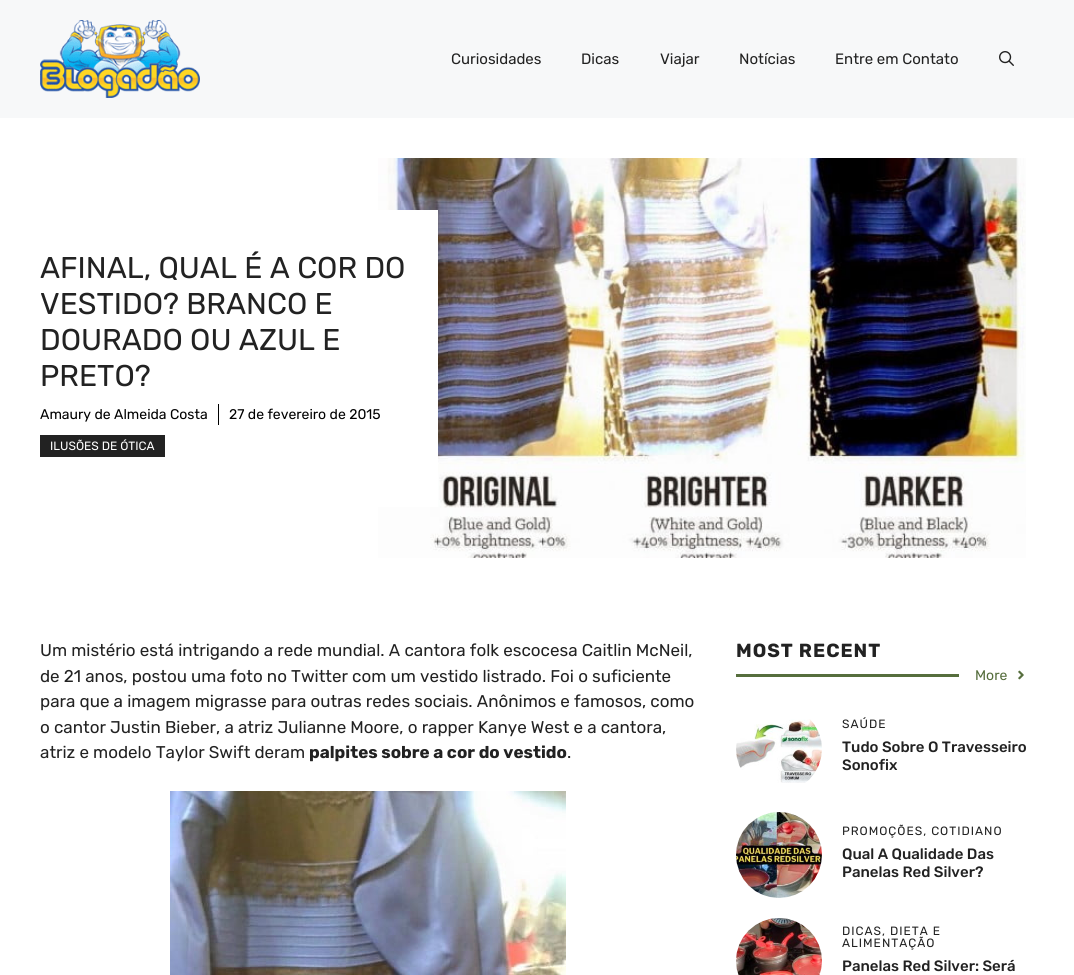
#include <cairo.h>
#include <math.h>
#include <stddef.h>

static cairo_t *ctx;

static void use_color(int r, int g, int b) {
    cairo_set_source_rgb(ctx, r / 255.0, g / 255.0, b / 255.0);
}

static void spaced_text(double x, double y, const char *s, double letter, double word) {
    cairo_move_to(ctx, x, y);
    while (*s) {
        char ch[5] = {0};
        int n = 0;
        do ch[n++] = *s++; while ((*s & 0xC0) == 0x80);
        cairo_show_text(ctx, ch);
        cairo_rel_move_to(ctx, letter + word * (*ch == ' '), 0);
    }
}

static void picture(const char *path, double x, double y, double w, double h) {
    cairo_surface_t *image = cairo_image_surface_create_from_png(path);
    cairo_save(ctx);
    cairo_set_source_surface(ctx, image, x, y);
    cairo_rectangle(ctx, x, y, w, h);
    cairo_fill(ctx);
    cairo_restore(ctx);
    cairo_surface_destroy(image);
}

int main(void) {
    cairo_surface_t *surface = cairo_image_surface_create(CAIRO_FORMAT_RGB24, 1074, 975);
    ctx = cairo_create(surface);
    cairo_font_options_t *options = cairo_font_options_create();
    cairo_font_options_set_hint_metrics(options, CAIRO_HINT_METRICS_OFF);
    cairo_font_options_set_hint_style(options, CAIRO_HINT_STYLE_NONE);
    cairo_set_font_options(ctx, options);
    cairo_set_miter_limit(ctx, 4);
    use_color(255, 255, 255);
    cairo_paint(ctx);
    use_color(247, 248, 249);
    cairo_rectangle(ctx, 0, 0, 1074, 118);
    cairo_fill(ctx);
    picture("img1.png", 40, 20, 160, 78);
    cairo_select_font_face(ctx, "Rubik", CAIRO_FONT_SLANT_NORMAL, CAIRO_FONT_WEIGHT_NORMAL);
    cairo_set_font_size(ctx, 15);
    use_color(34, 34, 34);
    cairo_move_to(ctx, 451, 64);
    cairo_show_text(ctx, "Curiosidades");
    cairo_move_to(ctx, 581, 64);
    cairo_show_text(ctx, "Dicas");
    cairo_move_to(ctx, 660, 64);
    cairo_show_text(ctx, "Viajar");
    cairo_move_to(ctx, 739, 64);
    cairo_show_text(ctx, "Notícias");
    cairo_move_to(ctx, 835, 64);
    cairo_show_text(ctx, "Entre em Contato");
    picture("img2.png", 999, 51, 15, 15);
    picture("img3.png", 378, 158, 648, 400);
    use_color(255, 255, 255);
    cairo_rectangle(ctx, 378, 210, 60, 297);
    cairo_fill(ctx);
    cairo_set_font_size(ctx, 30);
    use_color(34, 34, 34);
    cairo_move_to(ctx, 40, 278);
    cairo_show_text(ctx, "AFINAL, QUAL É A COR DO");
    cairo_move_to(ctx, 40, 314);
    cairo_show_text(ctx, "VESTIDO? BRANCO E");
    cairo_move_to(ctx, 40, 350);
    cairo_show_text(ctx, "DOURADO OU AZUL E");
    cairo_move_to(ctx, 40, 386);
    cairo_show_text(ctx, "PRETO?");
    use_color(0, 0, 0);
    cairo_rectangle(ctx, 218, 404, 1, 21);
    cairo_fill(ctx);
    cairo_set_font_size(ctx, 14);
    cairo_move_to(ctx, 40, 419);
    cairo_show_text(ctx, "Amaury de Almeida Costa");
    cairo_move_to(ctx, 229, 419);
    cairo_show_text(ctx, "27 de fevereiro de 2015");
    use_color(34, 34, 34);
    cairo_rectangle(ctx, 40, 435, 125, 22);
    cairo_fill(ctx);
    cairo_set_font_size(ctx, 12);
    use_color(255, 255, 255);
    cairo_move_to(ctx, 50, 450);
    cairo_show_text(ctx, "ILUSÕES DE ÓTICA");
    cairo_set_font_size(ctx, 17);
    use_color(34, 34, 34);
    cairo_move_to(ctx, 40, 656);
    cairo_show_text(ctx, "Um mistério está intrigando a rede mundial. A cantora folk escocesa Caitlin McNeil,");
    cairo_move_to(ctx, 40, 682);
    cairo_show_text(ctx, "de 21 anos, postou uma foto no Twitter com um vestido listrado. Foi o suficiente");
    cairo_move_to(ctx, 40, 707);
    cairo_show_text(ctx, "para que a imagem migrasse para outras redes sociais. Anônimos e famosos, como");
    cairo_move_to(ctx, 40, 733);
    cairo_show_text(ctx, "o cantor Justin Bieber, a atriz Julianne Moore, o rapper Kanye West e a cantora,");
    cairo_move_to(ctx, 40, 758);
    cairo_show_text(ctx, "atriz e modelo Taylor Swift deram");
    cairo_select_font_face(ctx, "Rubik", CAIRO_FONT_SLANT_NORMAL, CAIRO_FONT_WEIGHT_BOLD);
    cairo_move_to(ctx, 309, 758);
    cairo_show_text(ctx, "palpites sobre a cor do vestido");
    cairo_select_font_face(ctx, "Rubik", CAIRO_FONT_SLANT_NORMAL, CAIRO_FONT_WEIGHT_NORMAL);
    cairo_move_to(ctx, 567, 758);
    cairo_show_text(ctx, ".");
    picture("img4.png", 170, 791, 396, 184);
    cairo_select_font_face(ctx, "Rubik", CAIRO_FONT_SLANT_NORMAL, CAIRO_FONT_WEIGHT_BOLD);
    cairo_set_font_size(ctx, 19);
    spaced_text(736, 657, "MOST RECENT", 1, 0);
    use_color(86, 110, 61);
    cairo_rectangle(ctx, 736, 674, 223, 3);
    cairo_fill(ctx);
    cairo_select_font_face(ctx, "Rubik", CAIRO_FONT_SLANT_NORMAL, CAIRO_FONT_WEIGHT_NORMAL);
    cairo_set_font_size(ctx, 14);
    cairo_move_to(ctx, 975, 680);
    cairo_show_text(ctx, "More");
    picture("img5.png", 1018, 670, 6, 10);
    picture("img6.png", 736, 719, 86, 64);
    cairo_set_font_size(ctx, 12);
    use_color(34, 34, 34);
    spaced_text(842, 728, "SAÚDE", 1, 0);
    cairo_select_font_face(ctx, "Rubik Medium", CAIRO_FONT_SLANT_NORMAL, CAIRO_FONT_WEIGHT_NORMAL);
    cairo_set_font_size(ctx, 15);
    cairo_move_to(ctx, 842, 752);
    cairo_show_text(ctx, "Tudo Sobre O Travesseiro");
    cairo_move_to(ctx, 842, 770);
    cairo_show_text(ctx, "Sonofix");
    picture("img7.png", 736, 812, 86, 86);
    cairo_select_font_face(ctx, "Rubik", CAIRO_FONT_SLANT_NORMAL, CAIRO_FONT_WEIGHT_NORMAL);
    cairo_set_font_size(ctx, 12);
    spaced_text(842, 835, "PROMOÇÕES, COTIDIANO", 1, 0);
    cairo_select_font_face(ctx, "Rubik Medium", CAIRO_FONT_SLANT_NORMAL, CAIRO_FONT_WEIGHT_NORMAL);
    cairo_set_font_size(ctx, 15);
    cairo_move_to(ctx, 842, 859);
    cairo_show_text(ctx, "Qual A Qualidade Das");
    cairo_move_to(ctx, 842, 877);
    cairo_show_text(ctx, "Panelas Red Silver?");
    picture("img8.png", 736, 918, 86, 57);
    cairo_select_font_face(ctx, "Rubik", CAIRO_FONT_SLANT_NORMAL, CAIRO_FONT_WEIGHT_NORMAL);
    cairo_set_font_size(ctx, 12);
    spaced_text(842, 935, "DICAS, DIETA E", 1, 0);
    spaced_text(842, 947, "ALIMENTAÇÃO", 1, 0);
    cairo_select_font_face(ctx, "Rubik Medium", CAIRO_FONT_SLANT_NORMAL, CAIRO_FONT_WEIGHT_NORMAL);
    cairo_set_font_size(ctx, 15);
    cairo_move_to(ctx, 842, 971);
    cairo_show_text(ctx, "Panelas Red Silver: Será");
    cairo_surface_write_to_png(surface, "result.png");
    cairo_font_options_destroy(options);
    cairo_destroy(ctx);
    cairo_surface_destroy(surface);
    return 0;
}
